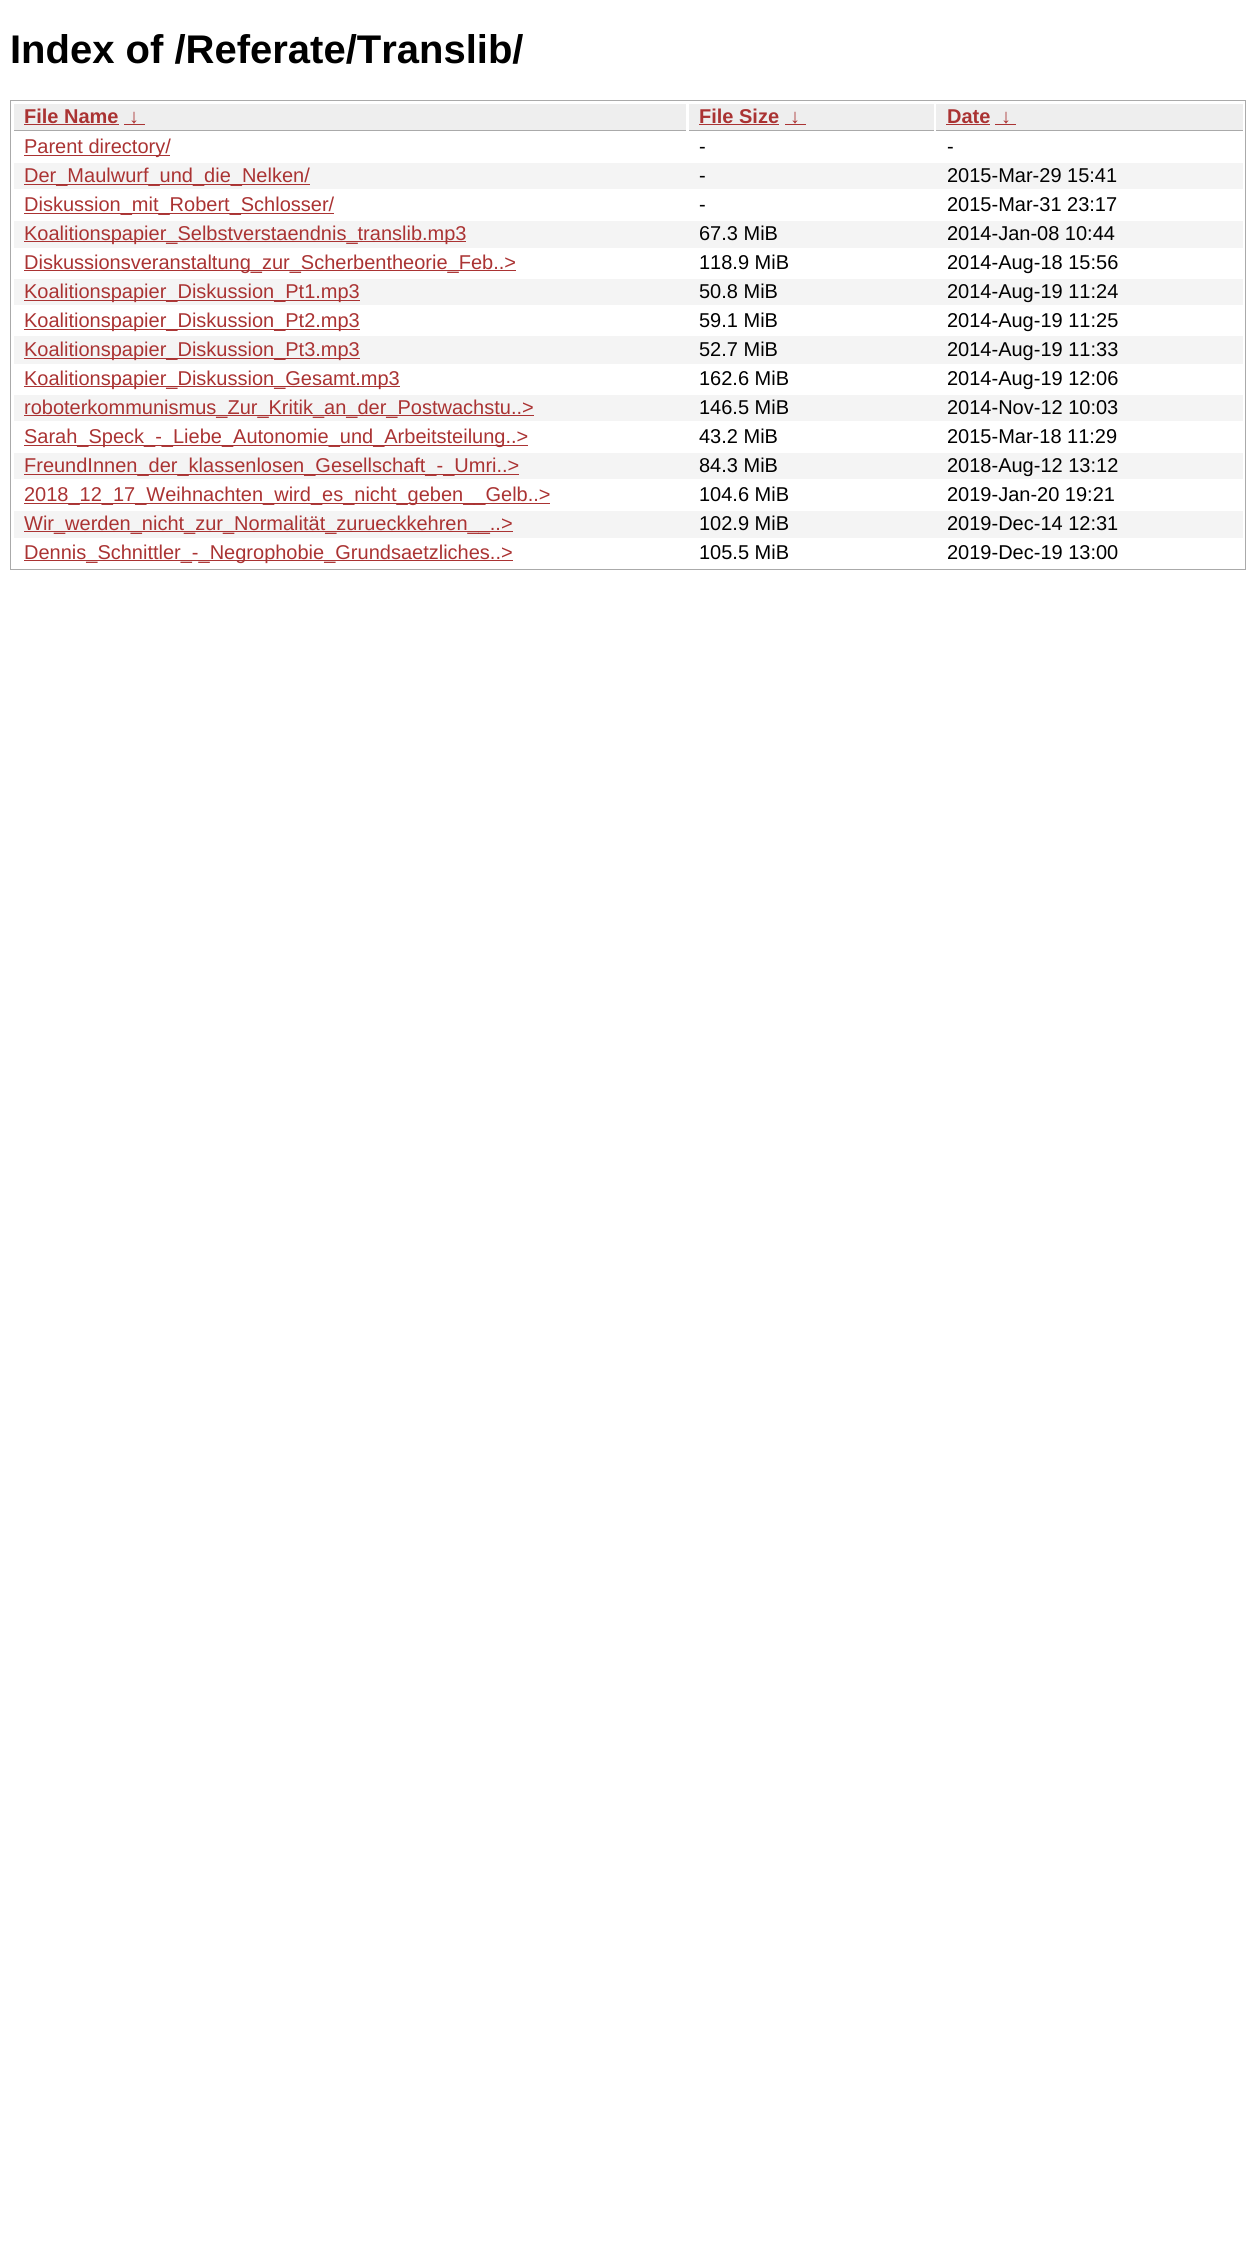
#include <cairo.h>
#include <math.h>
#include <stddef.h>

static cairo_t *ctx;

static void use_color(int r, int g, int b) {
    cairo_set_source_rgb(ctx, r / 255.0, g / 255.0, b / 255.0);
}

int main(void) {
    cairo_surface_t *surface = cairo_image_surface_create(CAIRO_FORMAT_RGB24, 1256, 2260);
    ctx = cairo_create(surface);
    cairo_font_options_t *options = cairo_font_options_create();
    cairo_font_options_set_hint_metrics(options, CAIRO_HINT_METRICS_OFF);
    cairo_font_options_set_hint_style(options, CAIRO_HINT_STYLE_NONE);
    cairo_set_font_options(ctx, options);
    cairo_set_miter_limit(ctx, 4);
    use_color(255, 255, 255);
    cairo_paint(ctx);
    cairo_select_font_face(ctx, "Liberation Sans", CAIRO_FONT_SLANT_NORMAL, CAIRO_FONT_WEIGHT_BOLD);
    cairo_set_font_size(ctx, 40);
    use_color(0, 0, 0);
    cairo_move_to(ctx, 10, 63);
    cairo_show_text(ctx, "Index of /Referate/Translib/");
    cairo_rectangle(ctx, 10.5, 100.5, 1235, 469);
    use_color(170, 170, 170);
    cairo_set_line_width(ctx, 1);
    cairo_stroke(ctx);
    use_color(238, 238, 238);
    cairo_rectangle(ctx, 14, 104, 672, 26);
    cairo_fill(ctx);
    use_color(170, 170, 170);
    cairo_rectangle(ctx, 14, 130, 672, 1);
    cairo_fill(ctx);
    cairo_set_font_size(ctx, 20);
    use_color(170, 51, 51);
    cairo_move_to(ctx, 24, 123);
    cairo_show_text(ctx, "File Name");
    cairo_rectangle(ctx, 24, 124, 95, 1);
    cairo_fill(ctx);
    cairo_move_to(ctx, 129, 123);
    cairo_show_text(ctx, "↓");
    cairo_rectangle(ctx, 124, 124, 21, 1);
    cairo_fill(ctx);
    use_color(238, 238, 238);
    cairo_rectangle(ctx, 689, 104, 245, 26);
    cairo_fill(ctx);
    use_color(170, 170, 170);
    cairo_rectangle(ctx, 689, 130, 245, 1);
    cairo_fill(ctx);
    use_color(170, 51, 51);
    cairo_move_to(ctx, 699, 123);
    cairo_show_text(ctx, "File Size");
    cairo_rectangle(ctx, 699, 124, 80, 1);
    cairo_fill(ctx);
    cairo_move_to(ctx, 790, 123);
    cairo_show_text(ctx, "↓");
    cairo_rectangle(ctx, 785, 124, 21, 1);
    cairo_fill(ctx);
    use_color(238, 238, 238);
    cairo_rectangle(ctx, 936, 104, 307, 26);
    cairo_fill(ctx);
    use_color(170, 170, 170);
    cairo_rectangle(ctx, 936, 130, 307, 1);
    cairo_fill(ctx);
    use_color(170, 51, 51);
    cairo_move_to(ctx, 947, 123);
    cairo_show_text(ctx, "Date");
    cairo_rectangle(ctx, 946, 124, 44, 1);
    cairo_fill(ctx);
    cairo_move_to(ctx, 1001, 123);
    cairo_show_text(ctx, "↓");
    cairo_rectangle(ctx, 995, 124, 21, 1);
    cairo_fill(ctx);
    cairo_rectangle(ctx, 24, 155, 146, 1);
    cairo_fill(ctx);
    cairo_select_font_face(ctx, "Liberation Sans", CAIRO_FONT_SLANT_NORMAL, CAIRO_FONT_WEIGHT_NORMAL);
    cairo_move_to(ctx, 24, 153);
    cairo_show_text(ctx, "Parent directory/");
    use_color(0, 0, 0);
    cairo_move_to(ctx, 699, 153);
    cairo_show_text(ctx, "-");
    cairo_move_to(ctx, 947, 153);
    cairo_show_text(ctx, "-");
    use_color(244, 244, 244);
    cairo_rectangle(ctx, 14, 163, 1229, 26);
    cairo_fill(ctx);
    use_color(170, 51, 51);
    cairo_rectangle(ctx, 24, 184, 286, 1);
    cairo_fill(ctx);
    cairo_move_to(ctx, 24, 182);
    cairo_show_text(ctx, "Der_Maulwurf_und_die_Nelken/");
    use_color(0, 0, 0);
    cairo_move_to(ctx, 699, 182);
    cairo_show_text(ctx, "-");
    cairo_move_to(ctx, 947, 182);
    cairo_show_text(ctx, "2015-Mar-29 15:41");
    use_color(170, 51, 51);
    cairo_rectangle(ctx, 24, 213, 310, 1);
    cairo_fill(ctx);
    cairo_move_to(ctx, 24, 211);
    cairo_show_text(ctx, "Diskussion_mit_Robert_Schlosser/");
    use_color(0, 0, 0);
    cairo_move_to(ctx, 699, 211);
    cairo_show_text(ctx, "-");
    cairo_move_to(ctx, 947, 211);
    cairo_show_text(ctx, "2015-Mar-31 23:17");
    use_color(244, 244, 244);
    cairo_rectangle(ctx, 14, 221, 1229, 27);
    cairo_fill(ctx);
    use_color(170, 51, 51);
    cairo_rectangle(ctx, 24, 241, 442, 1);
    cairo_fill(ctx);
    cairo_move_to(ctx, 24, 240);
    cairo_show_text(ctx, "Koalitionspapier_Selbstverstaendnis_translib.mp3");
    use_color(0, 0, 0);
    cairo_move_to(ctx, 699, 240);
    cairo_show_text(ctx, "67.3 MiB");
    cairo_move_to(ctx, 947, 240);
    cairo_show_text(ctx, "2014-Jan-08 10:44");
    use_color(170, 51, 51);
    cairo_rectangle(ctx, 24, 270, 492, 1);
    cairo_fill(ctx);
    cairo_move_to(ctx, 24, 269);
    cairo_show_text(ctx, "Diskussionsveranstaltung_zur_Scherbentheorie_Feb..>");
    use_color(0, 0, 0);
    cairo_move_to(ctx, 699, 269);
    cairo_show_text(ctx, "118.9 MiB");
    cairo_move_to(ctx, 947, 269);
    cairo_show_text(ctx, "2014-Aug-18 15:56");
    use_color(244, 244, 244);
    cairo_rectangle(ctx, 14, 279, 1229, 26);
    cairo_fill(ctx);
    use_color(170, 51, 51);
    cairo_rectangle(ctx, 24, 300, 336, 1);
    cairo_fill(ctx);
    cairo_move_to(ctx, 24, 298);
    cairo_show_text(ctx, "Koalitionspapier_Diskussion_Pt1.mp3");
    use_color(0, 0, 0);
    cairo_move_to(ctx, 699, 298);
    cairo_show_text(ctx, "50.8 MiB");
    cairo_move_to(ctx, 947, 298);
    cairo_show_text(ctx, "2014-Aug-19 11:24");
    use_color(170, 51, 51);
    cairo_rectangle(ctx, 24, 329, 336, 1);
    cairo_fill(ctx);
    cairo_move_to(ctx, 24, 327);
    cairo_show_text(ctx, "Koalitionspapier_Diskussion_Pt2.mp3");
    use_color(0, 0, 0);
    cairo_move_to(ctx, 699, 327);
    cairo_show_text(ctx, "59.1 MiB");
    cairo_move_to(ctx, 947, 327);
    cairo_show_text(ctx, "2014-Aug-19 11:25");
    use_color(244, 244, 244);
    cairo_rectangle(ctx, 14, 336, 1229, 28);
    cairo_fill(ctx);
    use_color(170, 51, 51);
    cairo_rectangle(ctx, 24, 358, 336, 1);
    cairo_fill(ctx);
    cairo_move_to(ctx, 24, 356);
    cairo_show_text(ctx, "Koalitionspapier_Diskussion_Pt3.mp3");
    use_color(0, 0, 0);
    cairo_move_to(ctx, 699, 356);
    cairo_show_text(ctx, "52.7 MiB");
    cairo_move_to(ctx, 947, 356);
    cairo_show_text(ctx, "2014-Aug-19 11:33");
    use_color(170, 51, 51);
    cairo_rectangle(ctx, 24, 386, 376, 1);
    cairo_fill(ctx);
    cairo_move_to(ctx, 24, 385);
    cairo_show_text(ctx, "Koalitionspapier_Diskussion_Gesamt.mp3");
    use_color(0, 0, 0);
    cairo_move_to(ctx, 699, 385);
    cairo_show_text(ctx, "162.6 MiB");
    cairo_move_to(ctx, 947, 385);
    cairo_show_text(ctx, "2014-Aug-19 12:06");
    use_color(244, 244, 244);
    cairo_rectangle(ctx, 14, 395, 1229, 26);
    cairo_fill(ctx);
    use_color(170, 51, 51);
    cairo_rectangle(ctx, 24, 415, 510, 1);
    cairo_fill(ctx);
    cairo_move_to(ctx, 24, 414);
    cairo_show_text(ctx, "roboterkommunismus_Zur_Kritik_an_der_Postwachstu..>");
    use_color(0, 0, 0);
    cairo_move_to(ctx, 699, 414);
    cairo_show_text(ctx, "146.5 MiB");
    cairo_move_to(ctx, 947, 414);
    cairo_show_text(ctx, "2014-Nov-12 10:03");
    use_color(170, 51, 51);
    cairo_rectangle(ctx, 24, 445, 504, 1);
    cairo_fill(ctx);
    cairo_move_to(ctx, 24, 443);
    cairo_show_text(ctx, "Sarah_Speck_-_Liebe_Autonomie_und_Arbeitsteilung..>");
    use_color(0, 0, 0);
    cairo_move_to(ctx, 699, 443);
    cairo_show_text(ctx, "43.2 MiB");
    cairo_move_to(ctx, 947, 443);
    cairo_show_text(ctx, "2015-Mar-18 11:29");
    use_color(244, 244, 244);
    cairo_rectangle(ctx, 14, 453, 1229, 26);
    cairo_fill(ctx);
    use_color(170, 51, 51);
    cairo_rectangle(ctx, 24, 474, 495, 1);
    cairo_fill(ctx);
    cairo_move_to(ctx, 24, 472);
    cairo_show_text(ctx, "FreundInnen_der_klassenlosen_Gesellschaft_-_Umri..>");
    use_color(0, 0, 0);
    cairo_move_to(ctx, 699, 472);
    cairo_show_text(ctx, "84.3 MiB");
    cairo_move_to(ctx, 947, 472);
    cairo_show_text(ctx, "2018-Aug-12 13:12");
    use_color(170, 51, 51);
    cairo_rectangle(ctx, 24, 503, 526, 1);
    cairo_fill(ctx);
    cairo_move_to(ctx, 24, 501);
    cairo_show_text(ctx, "2018_12_17_Weihnachten_wird_es_nicht_geben__Gelb..>");
    use_color(0, 0, 0);
    cairo_move_to(ctx, 699, 501);
    cairo_show_text(ctx, "104.6 MiB");
    cairo_move_to(ctx, 947, 501);
    cairo_show_text(ctx, "2019-Jan-20 19:21");
    use_color(244, 244, 244);
    cairo_rectangle(ctx, 14, 511, 1229, 27);
    cairo_fill(ctx);
    use_color(170, 51, 51);
    cairo_rectangle(ctx, 24, 531, 489, 1);
    cairo_fill(ctx);
    cairo_move_to(ctx, 24, 530);
    cairo_show_text(ctx, "Wir_werden_nicht_zur_Normalität_zurueckkehren__..>");
    use_color(0, 0, 0);
    cairo_move_to(ctx, 699, 530);
    cairo_show_text(ctx, "102.9 MiB");
    cairo_move_to(ctx, 947, 530);
    cairo_show_text(ctx, "2019-Dec-14 12:31");
    use_color(170, 51, 51);
    cairo_rectangle(ctx, 24, 560, 489, 1);
    cairo_fill(ctx);
    cairo_move_to(ctx, 24, 559);
    cairo_show_text(ctx, "Dennis_Schnittler_-_Negrophobie_Grundsaetzliches..>");
    use_color(0, 0, 0);
    cairo_move_to(ctx, 699, 559);
    cairo_show_text(ctx, "105.5 MiB");
    cairo_move_to(ctx, 947, 559);
    cairo_show_text(ctx, "2019-Dec-19 13:00");
    cairo_surface_write_to_png(surface, "result.png");
    cairo_font_options_destroy(options);
    cairo_destroy(ctx);
    cairo_surface_destroy(surface);
    return 0;
}
